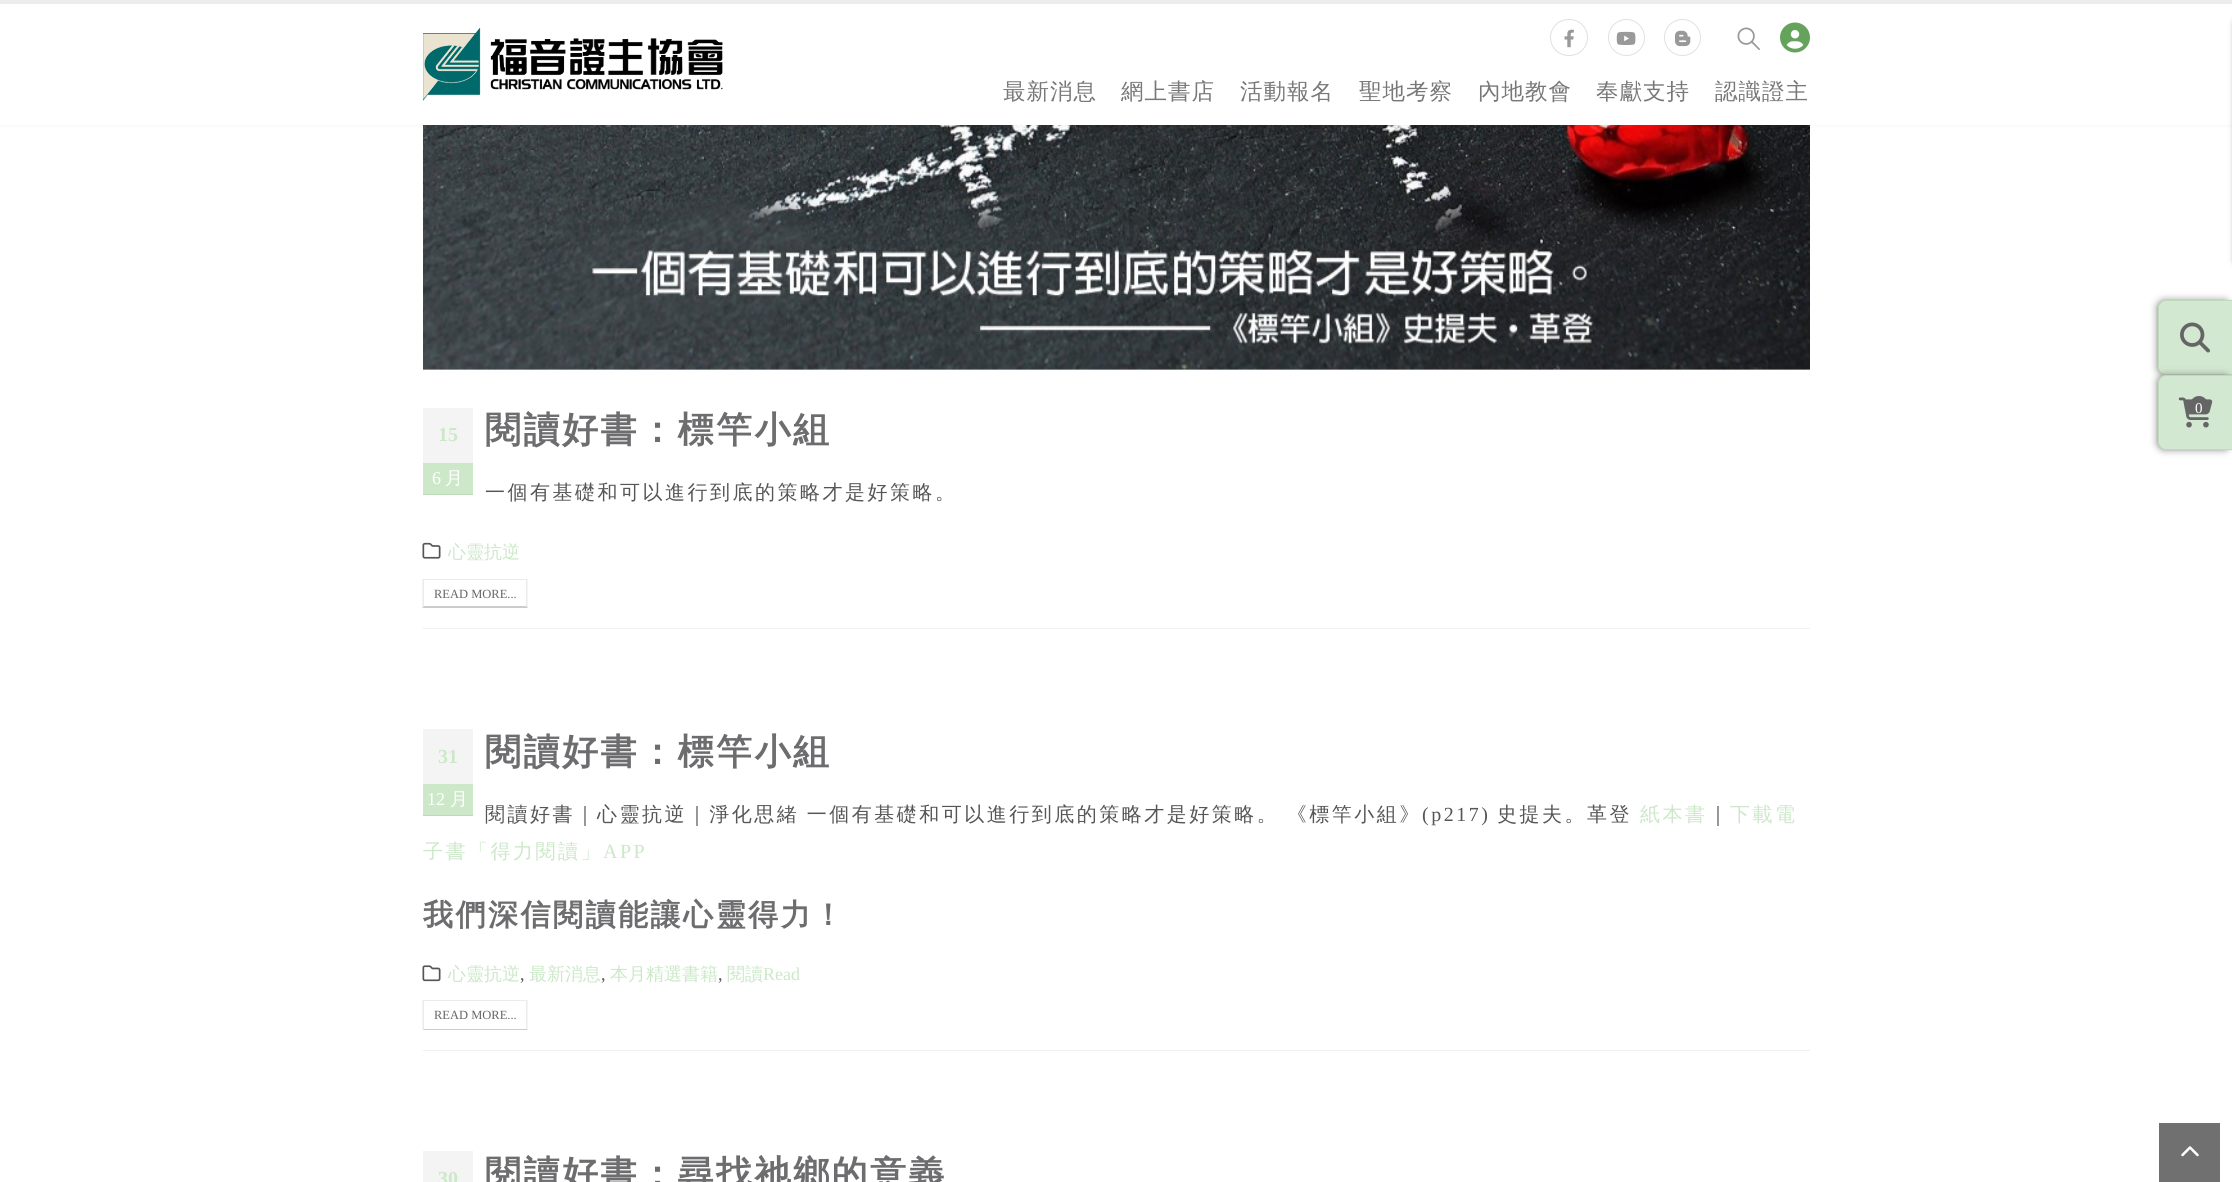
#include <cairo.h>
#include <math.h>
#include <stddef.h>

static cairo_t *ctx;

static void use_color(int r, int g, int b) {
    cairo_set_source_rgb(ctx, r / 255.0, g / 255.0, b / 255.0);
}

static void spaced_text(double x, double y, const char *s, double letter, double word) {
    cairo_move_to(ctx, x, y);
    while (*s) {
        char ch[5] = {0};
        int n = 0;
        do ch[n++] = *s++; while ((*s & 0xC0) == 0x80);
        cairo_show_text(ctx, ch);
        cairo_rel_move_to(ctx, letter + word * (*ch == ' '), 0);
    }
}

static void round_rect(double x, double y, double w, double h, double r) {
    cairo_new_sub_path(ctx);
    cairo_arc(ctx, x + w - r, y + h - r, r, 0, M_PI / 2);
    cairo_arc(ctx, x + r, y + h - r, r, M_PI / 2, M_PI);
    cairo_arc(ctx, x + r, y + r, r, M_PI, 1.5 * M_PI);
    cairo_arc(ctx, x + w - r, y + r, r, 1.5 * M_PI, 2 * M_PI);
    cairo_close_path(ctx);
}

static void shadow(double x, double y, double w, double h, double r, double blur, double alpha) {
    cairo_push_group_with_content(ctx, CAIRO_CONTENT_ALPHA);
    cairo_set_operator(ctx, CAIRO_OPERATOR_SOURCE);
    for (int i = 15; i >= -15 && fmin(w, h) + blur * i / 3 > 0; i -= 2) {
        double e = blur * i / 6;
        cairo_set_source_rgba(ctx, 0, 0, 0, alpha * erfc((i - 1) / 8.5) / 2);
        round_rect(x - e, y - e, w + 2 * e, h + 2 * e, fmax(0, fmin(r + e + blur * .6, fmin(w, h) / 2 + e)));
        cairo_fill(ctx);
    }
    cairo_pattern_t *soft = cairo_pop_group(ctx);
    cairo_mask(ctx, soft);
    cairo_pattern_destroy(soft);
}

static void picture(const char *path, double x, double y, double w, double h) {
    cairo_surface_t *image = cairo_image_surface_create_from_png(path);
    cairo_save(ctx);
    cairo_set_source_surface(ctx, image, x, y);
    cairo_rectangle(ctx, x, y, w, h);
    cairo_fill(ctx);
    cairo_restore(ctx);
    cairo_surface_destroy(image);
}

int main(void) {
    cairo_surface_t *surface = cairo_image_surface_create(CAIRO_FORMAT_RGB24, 2232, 1182);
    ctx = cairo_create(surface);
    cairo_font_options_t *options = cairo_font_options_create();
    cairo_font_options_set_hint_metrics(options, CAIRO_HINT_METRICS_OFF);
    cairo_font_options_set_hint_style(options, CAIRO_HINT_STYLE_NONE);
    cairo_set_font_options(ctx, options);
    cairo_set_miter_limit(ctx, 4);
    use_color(255, 255, 255);
    cairo_paint(ctx);
    picture("img7.png", 423, 125, 1387, 245);
    use_color(0, 0, 0);
    shadow(0, 0, 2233, 125, 0, 2, 0.06);
    use_color(255, 255, 255);
    cairo_rectangle(ctx, 0, 4, 2232, 121);
    cairo_fill(ctx);
    use_color(237, 237, 237);
    cairo_rectangle(ctx, 0, 0, 2232, 4);
    cairo_fill(ctx);
    picture("img1.png", 423, 28, 300, 73);
    round_rect(1550.5, 19.5, 37, 36, 18);
    use_color(224, 224, 224);
    cairo_set_line_width(ctx, 1);
    cairo_stroke(ctx);
    picture("img2.png", 1564, 29, 10, 19);
    cairo_arc(ctx, 1626.5, 37.5, 18, 0, 2 * M_PI);
    cairo_stroke(ctx);
    picture("img3.png", 1616, 31, 20, 14);
    cairo_arc(ctx, 1682.5, 37.5, 18, 0, 2 * M_PI);
    cairo_stroke(ctx);
    picture("img4.png", 1675, 30, 16, 17);
    picture("img5.png", 1737, 27, 23, 23);
    picture("img6.png", 1780, 22, 30, 31);
    cairo_select_font_face(ctx, "WenQuanYi Zen Hei Medium", CAIRO_FONT_SLANT_NORMAL, CAIRO_FONT_WEIGHT_NORMAL);
    cairo_set_font_size(ctx, 22.5);
    use_color(120, 120, 120);
    spaced_text(1003, 99, "最新消息", 1, 0);
    spaced_text(1121, 99, "網上書店", 1, 0);
    spaced_text(1240, 99, "活動報名", 1, 0);
    spaced_text(1359, 99, "聖地考察", 1, 0);
    spaced_text(1478, 99, "內地教會", 1, 0);
    spaced_text(1596, 99, "奉獻支持", 1, 0);
    spaced_text(1715, 99, "認識證主", 1, 0);
    use_color(240, 240, 240);
    cairo_rectangle(ctx, 423, 628, 1387, 1);
    cairo_fill(ctx);
    use_color(244, 244, 244);
    cairo_rectangle(ctx, 423, 408, 50, 55);
    cairo_fill(ctx);
    cairo_select_font_face(ctx, "Liberation Serif", CAIRO_FONT_SLANT_NORMAL, CAIRO_FONT_WEIGHT_BOLD);
    cairo_set_font_size(ctx, 20);
    use_color(204, 232, 201);
    cairo_move_to(ctx, 438, 441);
    cairo_show_text(ctx, "15");
    cairo_rectangle(ctx, 423, 463, 50, 31);
    cairo_fill(ctx);
    use_color(190, 216, 187);
    cairo_rectangle(ctx, 423, 494, 50, 1);
    cairo_fill(ctx);
    cairo_select_font_face(ctx, "Liberation Serif", CAIRO_FONT_SLANT_NORMAL, CAIRO_FONT_WEIGHT_NORMAL);
    cairo_set_font_size(ctx, 18);
    use_color(255, 255, 255);
    cairo_move_to(ctx, 432, 484);
    cairo_show_text(ctx, "6");
    cairo_select_font_face(ctx, "WenQuanYi Zen Hei Medium", CAIRO_FONT_SLANT_NORMAL, CAIRO_FONT_WEIGHT_NORMAL);
    cairo_move_to(ctx, 445, 484);
    cairo_show_text(ctx, "月");
    cairo_select_font_face(ctx, "WenQuanYi Zen Hei", CAIRO_FONT_SLANT_NORMAL, CAIRO_FONT_WEIGHT_BOLD);
    cairo_set_font_size(ctx, 36);
    use_color(109, 109, 111);
    spaced_text(485, 442, "閱讀好書：標竿小組", 2.5, 0);
    cairo_select_font_face(ctx, "WenQuanYi Zen Hei Medium", CAIRO_FONT_SLANT_NORMAL, CAIRO_FONT_WEIGHT_NORMAL);
    cairo_set_font_size(ctx, 20);
    use_color(86, 86, 86);
    spaced_text(485, 499, "一個有基礎和可以進行到底的策略才是好策略。", 2.5, 0);
    picture("img8.png", 422, 542, 19, 17);
    cairo_set_font_size(ctx, 18);
    use_color(204, 232, 201);
    cairo_move_to(ctx, 448, 558);
    cairo_show_text(ctx, "心靈抗逆");
    use_color(235, 235, 235);
    cairo_new_path(ctx);
    cairo_move_to(ctx, 422, 579);
    cairo_line_to(ctx, 528, 579);
    cairo_line_to(ctx, 526, 580);
    cairo_line_to(ctx, 424, 580);
    cairo_close_path(ctx);
    cairo_fill(ctx);
    cairo_new_path(ctx);
    cairo_move_to(ctx, 527.5, 579);
    cairo_line_to(ctx, 527.5, 607.5);
    cairo_line_to(ctx, 526, 606);
    cairo_line_to(ctx, 526, 580);
    cairo_close_path(ctx);
    cairo_fill(ctx);
    cairo_set_source_rgba(ctx, 0, 0, 0, 0.2);
    cairo_new_path(ctx);
    cairo_move_to(ctx, 528, 608);
    cairo_line_to(ctx, 422, 608);
    cairo_line_to(ctx, 424, 606);
    cairo_line_to(ctx, 526, 606);
    cairo_close_path(ctx);
    cairo_fill(ctx);
    use_color(235, 235, 235);
    cairo_new_path(ctx);
    cairo_move_to(ctx, 422.5, 607.5);
    cairo_line_to(ctx, 422.5, 579);
    cairo_line_to(ctx, 424, 580);
    cairo_line_to(ctx, 424, 606);
    cairo_close_path(ctx);
    cairo_fill(ctx);
    cairo_select_font_face(ctx, "Liberation Serif", CAIRO_FONT_SLANT_NORMAL, CAIRO_FONT_WEIGHT_NORMAL);
    cairo_set_font_size(ctx, 12.5);
    use_color(102, 102, 102);
    cairo_move_to(ctx, 434, 598);
    cairo_show_text(ctx, "READ MORE...");
    use_color(240, 240, 240);
    cairo_rectangle(ctx, 423, 1050, 1387, 1);
    cairo_fill(ctx);
    cairo_select_font_face(ctx, "WenQuanYi Zen Hei", CAIRO_FONT_SLANT_NORMAL, CAIRO_FONT_WEIGHT_BOLD);
    cairo_set_font_size(ctx, 36);
    use_color(109, 109, 111);
    spaced_text(485, 764, "閱讀好書：標竿小組", 2.5, 0);
    cairo_select_font_face(ctx, "WenQuanYi Zen Hei Medium", CAIRO_FONT_SLANT_NORMAL, CAIRO_FONT_WEIGHT_NORMAL);
    cairo_set_font_size(ctx, 20);
    use_color(86, 86, 86);
    spaced_text(485, 821, "閱讀好書｜心靈抗逆｜淨化思緒 一個有基礎和可以進行到底的策略才是好策略。 《標竿小組》", 2.5, -1);
    cairo_select_font_face(ctx, "Liberation Serif", CAIRO_FONT_SLANT_NORMAL, CAIRO_FONT_WEIGHT_NORMAL);
    spaced_text(1422, 821, "(p217)", 2.5, 0);
    cairo_select_font_face(ctx, "WenQuanYi Zen Hei Medium", CAIRO_FONT_SLANT_NORMAL, CAIRO_FONT_WEIGHT_NORMAL);
    spaced_text(1497, 821, "史提夫。革登", 2.5, 0);
    use_color(204, 232, 201);
    spaced_text(1640, 821, "紙本書", 2.5, 0);
    use_color(86, 86, 86);
    spaced_text(1708, 821, "｜", 2.5, 0);
    use_color(204, 232, 201);
    spaced_text(1730, 821, "下載電", 2.5, 0);
    spaced_text(423, 858, "子書「得力閱讀」", 2.5, 0);
    cairo_select_font_face(ctx, "Liberation Serif", CAIRO_FONT_SLANT_NORMAL, CAIRO_FONT_WEIGHT_NORMAL);
    spaced_text(603, 858, "APP", 2.5, 0);
    cairo_select_font_face(ctx, "WenQuanYi Zen Hei", CAIRO_FONT_SLANT_NORMAL, CAIRO_FONT_WEIGHT_BOLD);
    cairo_set_font_size(ctx, 30);
    use_color(109, 109, 111);
    spaced_text(423, 925, "我們深信閱讀能讓心靈得力！", 2.5, 0);
    use_color(244, 244, 244);
    cairo_rectangle(ctx, 423, 729, 50, 55);
    cairo_fill(ctx);
    cairo_select_font_face(ctx, "Liberation Serif", CAIRO_FONT_SLANT_NORMAL, CAIRO_FONT_WEIGHT_BOLD);
    cairo_set_font_size(ctx, 20);
    use_color(204, 232, 201);
    cairo_move_to(ctx, 438, 763);
    cairo_show_text(ctx, "31");
    cairo_rectangle(ctx, 423, 784, 50, 31);
    cairo_fill(ctx);
    use_color(190, 216, 187);
    cairo_rectangle(ctx, 423, 815, 50, 1);
    cairo_fill(ctx);
    cairo_select_font_face(ctx, "Liberation Serif", CAIRO_FONT_SLANT_NORMAL, CAIRO_FONT_WEIGHT_NORMAL);
    cairo_set_font_size(ctx, 18);
    use_color(255, 255, 255);
    cairo_move_to(ctx, 427, 805);
    cairo_show_text(ctx, "12");
    cairo_select_font_face(ctx, "WenQuanYi Zen Hei Medium", CAIRO_FONT_SLANT_NORMAL, CAIRO_FONT_WEIGHT_NORMAL);
    cairo_move_to(ctx, 450, 805);
    cairo_show_text(ctx, "月");
    picture("img9.png", 422, 965, 19, 17);
    use_color(204, 232, 201);
    cairo_move_to(ctx, 448, 980);
    cairo_show_text(ctx, "心靈抗逆");
    cairo_select_font_face(ctx, "Liberation Serif", CAIRO_FONT_SLANT_NORMAL, CAIRO_FONT_WEIGHT_NORMAL);
    use_color(86, 86, 86);
    cairo_move_to(ctx, 520, 980);
    cairo_show_text(ctx, ",");
    cairo_select_font_face(ctx, "WenQuanYi Zen Hei Medium", CAIRO_FONT_SLANT_NORMAL, CAIRO_FONT_WEIGHT_NORMAL);
    use_color(204, 232, 201);
    cairo_move_to(ctx, 529, 980);
    cairo_show_text(ctx, "最新消息");
    cairo_select_font_face(ctx, "Liberation Serif", CAIRO_FONT_SLANT_NORMAL, CAIRO_FONT_WEIGHT_NORMAL);
    use_color(86, 86, 86);
    cairo_move_to(ctx, 601, 980);
    cairo_show_text(ctx, ",");
    cairo_select_font_face(ctx, "WenQuanYi Zen Hei Medium", CAIRO_FONT_SLANT_NORMAL, CAIRO_FONT_WEIGHT_NORMAL);
    use_color(204, 232, 201);
    cairo_move_to(ctx, 610, 980);
    cairo_show_text(ctx, "本月精選書籍");
    cairo_select_font_face(ctx, "Liberation Serif", CAIRO_FONT_SLANT_NORMAL, CAIRO_FONT_WEIGHT_NORMAL);
    use_color(86, 86, 86);
    cairo_move_to(ctx, 718, 980);
    cairo_show_text(ctx, ",");
    cairo_select_font_face(ctx, "WenQuanYi Zen Hei Medium", CAIRO_FONT_SLANT_NORMAL, CAIRO_FONT_WEIGHT_NORMAL);
    use_color(204, 232, 201);
    cairo_move_to(ctx, 727, 980);
    cairo_show_text(ctx, "閱讀");
    cairo_select_font_face(ctx, "Liberation Serif", CAIRO_FONT_SLANT_NORMAL, CAIRO_FONT_WEIGHT_NORMAL);
    cairo_move_to(ctx, 763, 980);
    cairo_show_text(ctx, "Read");
    use_color(235, 235, 235);
    cairo_new_path(ctx);
    cairo_move_to(ctx, 422, 1000);
    cairo_line_to(ctx, 528, 1000);
    cairo_line_to(ctx, 526, 1001);
    cairo_line_to(ctx, 424, 1001);
    cairo_close_path(ctx);
    cairo_fill(ctx);
    cairo_new_path(ctx);
    cairo_move_to(ctx, 527.5, 1000);
    cairo_line_to(ctx, 527.5, 1030);
    cairo_line_to(ctx, 526, 1029);
    cairo_line_to(ctx, 526, 1001);
    cairo_close_path(ctx);
    cairo_fill(ctx);
    cairo_set_source_rgba(ctx, 0, 0, 0, 0.2);
    cairo_new_path(ctx);
    cairo_move_to(ctx, 528, 1030);
    cairo_line_to(ctx, 422, 1030);
    cairo_line_to(ctx, 424, 1029);
    cairo_line_to(ctx, 526, 1029);
    cairo_close_path(ctx);
    cairo_fill(ctx);
    use_color(235, 235, 235);
    cairo_new_path(ctx);
    cairo_move_to(ctx, 422.5, 1030);
    cairo_line_to(ctx, 422.5, 1000);
    cairo_line_to(ctx, 424, 1001);
    cairo_line_to(ctx, 424, 1029);
    cairo_close_path(ctx);
    cairo_fill(ctx);
    cairo_set_font_size(ctx, 12.5);
    use_color(102, 102, 102);
    cairo_move_to(ctx, 434, 1019);
    cairo_show_text(ctx, "READ MORE...");
    use_color(244, 244, 244);
    cairo_rectangle(ctx, 423, 1151, 50, 31);
    cairo_fill(ctx);
    cairo_select_font_face(ctx, "Liberation Serif", CAIRO_FONT_SLANT_NORMAL, CAIRO_FONT_WEIGHT_BOLD);
    cairo_set_font_size(ctx, 20);
    use_color(204, 232, 201);
    cairo_move_to(ctx, 438, 1185);
    cairo_show_text(ctx, "30");
    cairo_select_font_face(ctx, "WenQuanYi Zen Hei", CAIRO_FONT_SLANT_NORMAL, CAIRO_FONT_WEIGHT_BOLD);
    cairo_set_font_size(ctx, 36);
    use_color(109, 109, 111);
    spaced_text(485, 1186, "閱讀好書：尋找祂鄉的意義", 2.5, 0);
    use_color(187, 187, 187);
    shadow(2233, 15, 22, 254, 15, 2.5, 1);
    use_color(115, 115, 115);
    shadow(2158, 301, 72, 73, 6, 4, 1);
    use_color(211, 232, 208);
    cairo_new_path(ctx);
    cairo_move_to(ctx, 2166, 300.5);
    cairo_line_to(ctx, 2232.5, 300.5);
    cairo_line_to(ctx, 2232.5, 374.5);
    cairo_line_to(ctx, 2166, 374.5);
    cairo_curve_to(ctx, 2162, 374.5, 2158.5, 371, 2158.5, 367);
    cairo_line_to(ctx, 2158.5, 308);
    cairo_curve_to(ctx, 2158.5, 304, 2162, 300.5, 2166, 300.5);
    cairo_close_path(ctx);
    cairo_fill_preserve(ctx);
    use_color(192, 218, 188);
    cairo_stroke(ctx);
    picture("img10.png", 2180, 322, 30, 31);
    use_color(115, 115, 115);
    shadow(2158, 376, 72, 73, 6, 4, 1);
    use_color(211, 232, 208);
    cairo_new_path(ctx);
    cairo_move_to(ctx, 2166, 375.5);
    cairo_line_to(ctx, 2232.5, 375.5);
    cairo_line_to(ctx, 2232.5, 449.5);
    cairo_line_to(ctx, 2166, 449.5);
    cairo_curve_to(ctx, 2162, 449.5, 2158.5, 446, 2158.5, 442);
    cairo_line_to(ctx, 2158.5, 383);
    cairo_curve_to(ctx, 2158.5, 379, 2162, 375.5, 2166, 375.5);
    cairo_close_path(ctx);
    cairo_fill_preserve(ctx);
    use_color(192, 218, 188);
    cairo_stroke(ctx);
    picture("img11.png", 2178, 397, 35, 31);
    use_color(101, 101, 101);
    cairo_arc(ctx, 2199, 405, 9, 0, 2 * M_PI);
    cairo_fill(ctx);
    cairo_select_font_face(ctx, "Liberation Serif", CAIRO_FONT_SLANT_NORMAL, CAIRO_FONT_WEIGHT_NORMAL);
    cairo_set_font_size(ctx, 15);
    use_color(255, 255, 255);
    cairo_move_to(ctx, 2195, 413);
    cairo_show_text(ctx, "0");
    use_color(112, 112, 112);
    cairo_rectangle(ctx, 2159, 1123, 61, 59);
    cairo_fill(ctx);
    picture("img12.png", 2181, 1146, 18, 11);
    cairo_surface_write_to_png(surface, "result.png");
    cairo_font_options_destroy(options);
    cairo_destroy(ctx);
    cairo_surface_destroy(surface);
    return 0;
}
